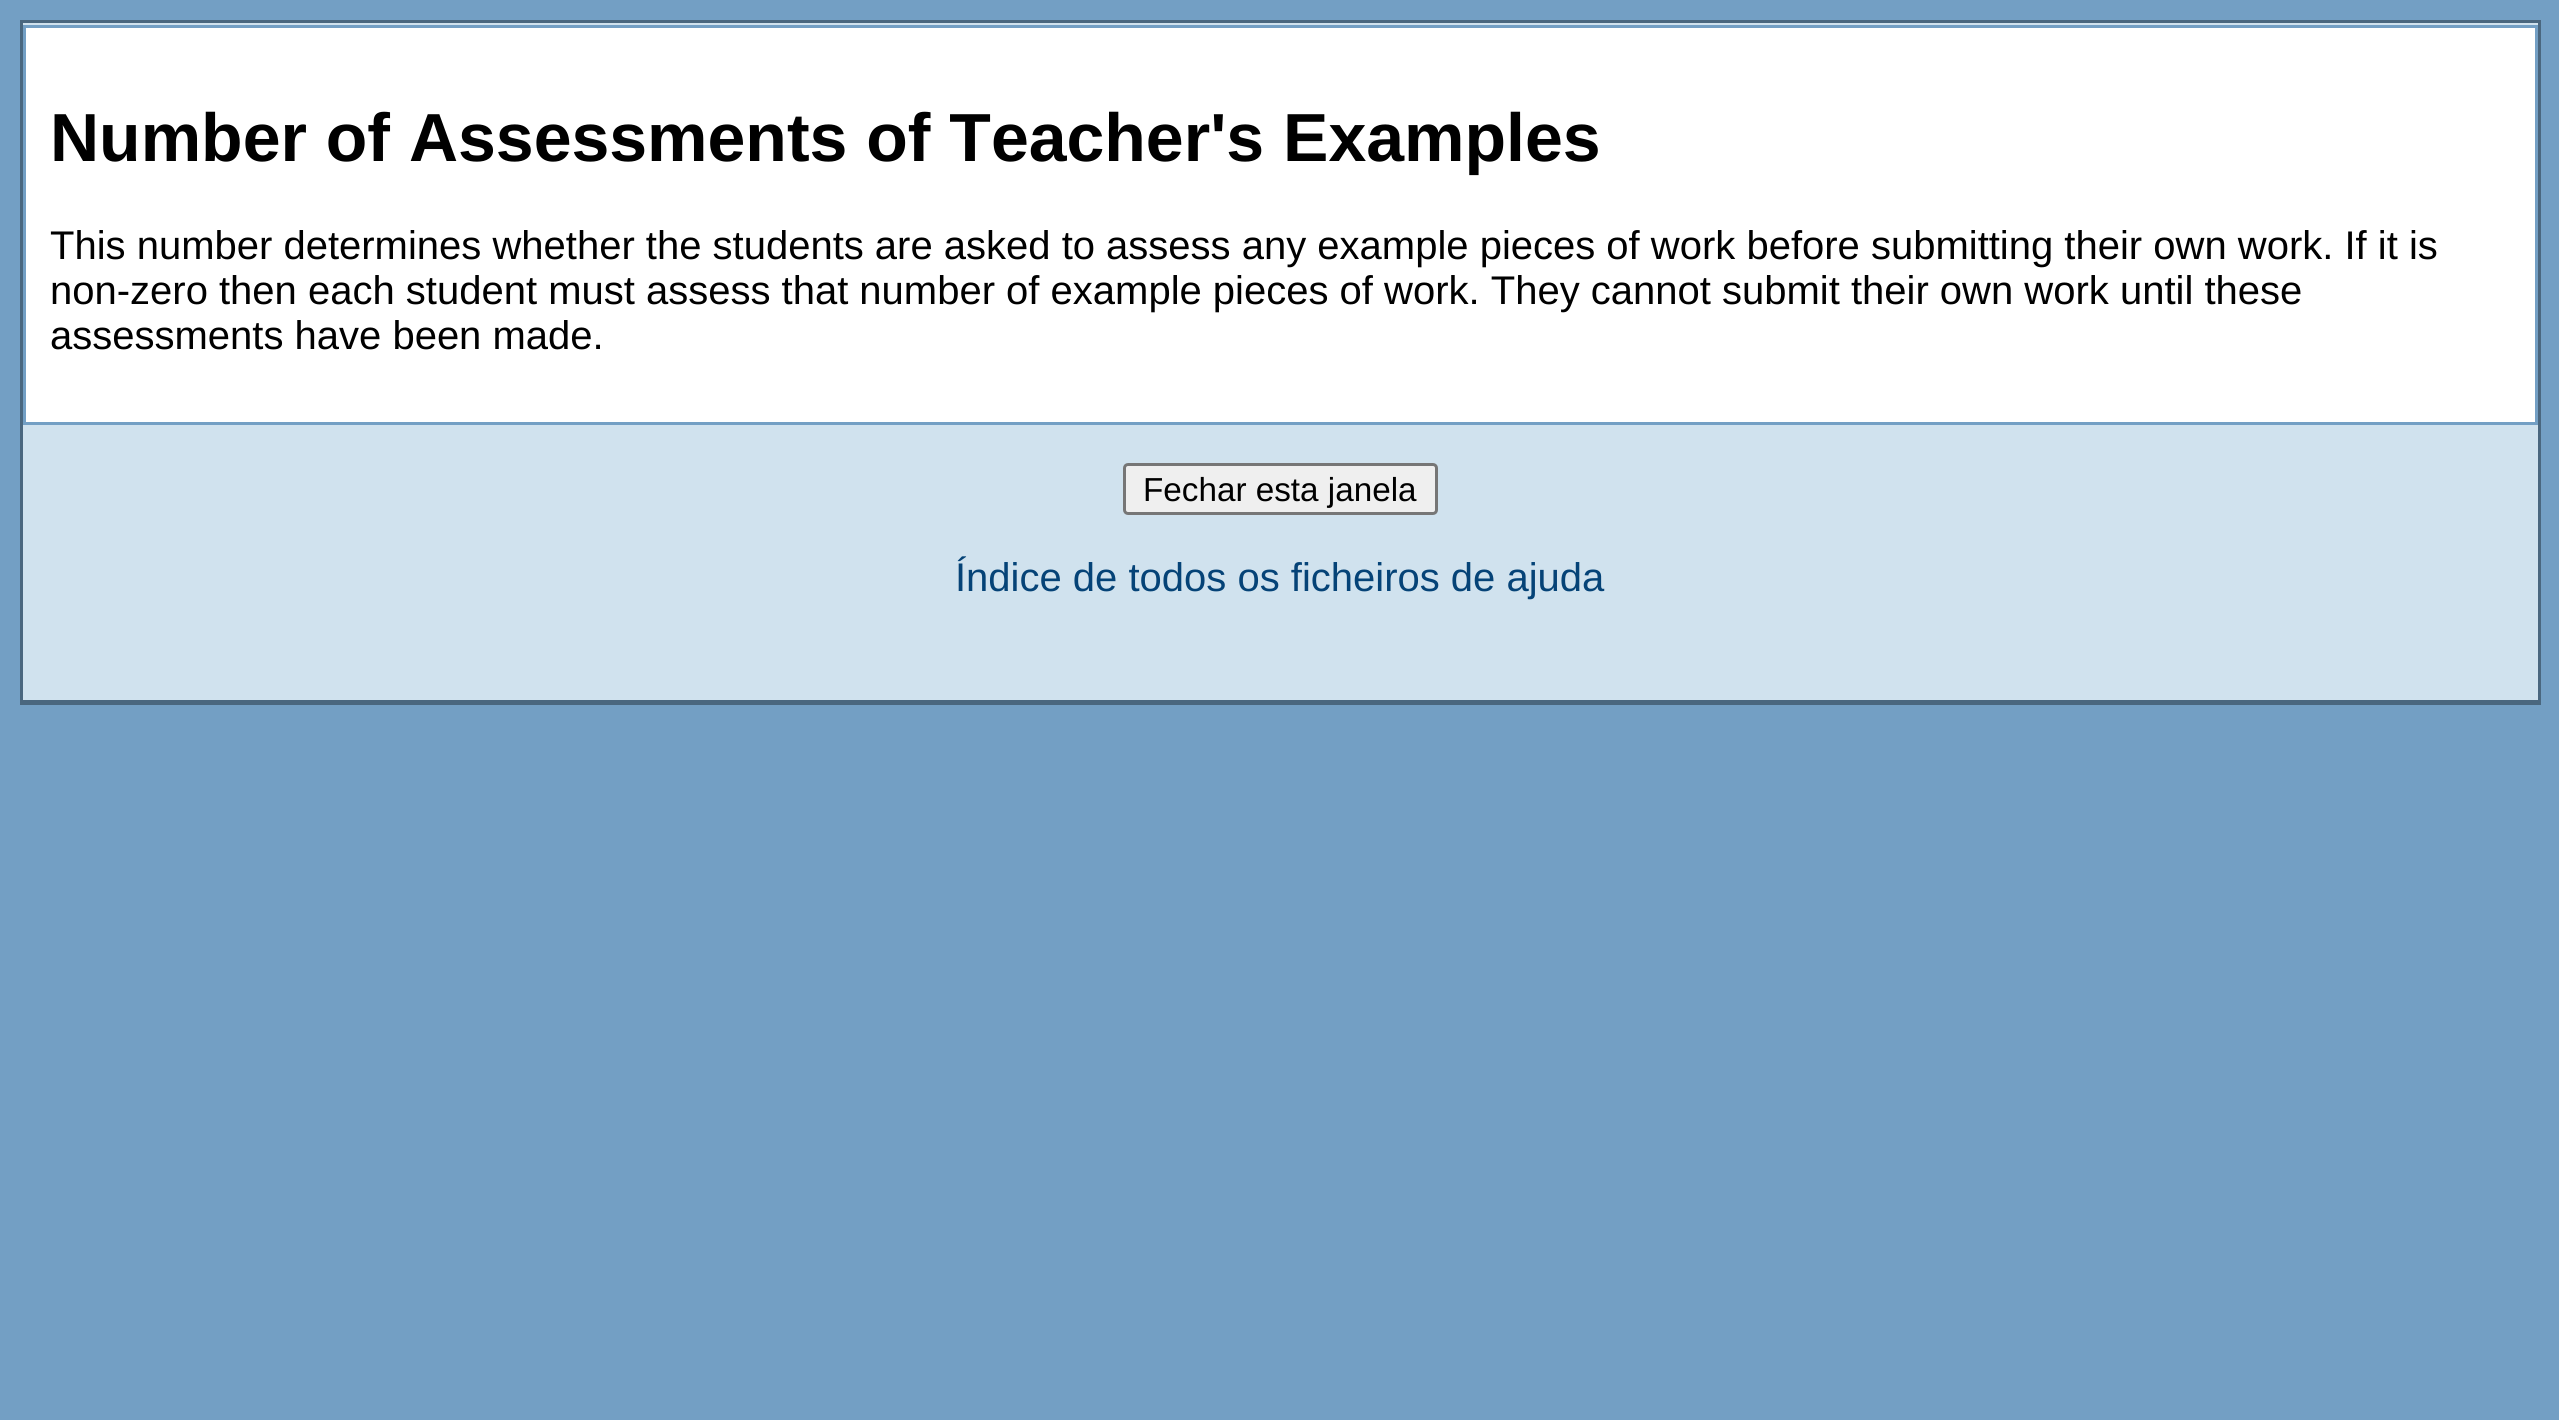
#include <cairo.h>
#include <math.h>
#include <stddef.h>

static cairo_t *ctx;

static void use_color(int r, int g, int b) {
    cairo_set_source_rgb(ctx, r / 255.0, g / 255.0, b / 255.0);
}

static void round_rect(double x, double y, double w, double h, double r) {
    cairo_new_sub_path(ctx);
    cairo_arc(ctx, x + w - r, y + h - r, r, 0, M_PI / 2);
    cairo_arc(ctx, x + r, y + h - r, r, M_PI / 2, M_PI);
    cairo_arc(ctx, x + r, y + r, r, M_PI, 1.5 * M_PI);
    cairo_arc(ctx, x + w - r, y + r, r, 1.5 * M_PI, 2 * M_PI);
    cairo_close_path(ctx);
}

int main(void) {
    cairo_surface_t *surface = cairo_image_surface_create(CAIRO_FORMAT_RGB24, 2559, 1420);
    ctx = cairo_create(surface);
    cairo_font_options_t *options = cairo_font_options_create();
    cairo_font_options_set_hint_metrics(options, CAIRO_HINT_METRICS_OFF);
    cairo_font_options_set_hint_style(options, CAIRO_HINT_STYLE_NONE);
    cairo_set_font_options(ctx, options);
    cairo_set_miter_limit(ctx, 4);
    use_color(115, 159, 196);
    cairo_paint(ctx);
    use_color(208, 226, 238);
    cairo_rectangle(ctx, 23, 23, 2515, 677);
    cairo_fill(ctx);
    use_color(74, 103, 127);
    cairo_rectangle(ctx, 20, 20, 2520, 3);
    cairo_fill(ctx);
    cairo_rectangle(ctx, 2538, 20, 3, 685);
    cairo_fill(ctx);
    cairo_rectangle(ctx, 20, 700, 2520, 5);
    cairo_fill(ctx);
    cairo_rectangle(ctx, 20, 20, 3, 685);
    cairo_fill(ctx);
    use_color(255, 255, 255);
    cairo_rectangle(ctx, 24.5, 26.5, 2512, 397);
    cairo_fill_preserve(ctx);
    use_color(115, 159, 196);
    cairo_set_line_width(ctx, 3);
    cairo_stroke(ctx);
    cairo_select_font_face(ctx, "Liberation Sans", CAIRO_FONT_SLANT_NORMAL, CAIRO_FONT_WEIGHT_BOLD);
    cairo_set_font_size(ctx, 68);
    use_color(0, 0, 0);
    cairo_move_to(ctx, 50, 161);
    cairo_show_text(ctx, "Number of Assessments of Teacher's Examples");
    cairo_select_font_face(ctx, "Liberation Sans", CAIRO_FONT_SLANT_NORMAL, CAIRO_FONT_WEIGHT_NORMAL);
    cairo_set_font_size(ctx, 40);
    cairo_move_to(ctx, 50, 259);
    cairo_show_text(ctx, "This number determines whether the students are asked to assess any example pieces of work before submitting their own work. If it is");
    cairo_move_to(ctx, 50, 304);
    cairo_show_text(ctx, "non-zero then each student must assess that number of example pieces of work. They cannot submit their own work until these");
    cairo_move_to(ctx, 50, 349);
    cairo_show_text(ctx, "assessments have been made.");
    use_color(239, 239, 239);
    round_rect(1124.5, 464.5, 312, 49, 3.5);
    cairo_fill_preserve(ctx);
    use_color(118, 118, 118);
    cairo_stroke(ctx);
    cairo_set_font_size(ctx, 33.25);
    use_color(0, 0, 0);
    cairo_move_to(ctx, 1143, 501);
    cairo_show_text(ctx, "Fechar esta janela");
    cairo_set_font_size(ctx, 40);
    use_color(5, 67, 119);
    cairo_move_to(ctx, 955, 591);
    cairo_show_text(ctx, "Índice de todos os ficheiros de ajuda");
    cairo_surface_write_to_png(surface, "result.png");
    cairo_font_options_destroy(options);
    cairo_destroy(ctx);
    cairo_surface_destroy(surface);
    return 0;
}
